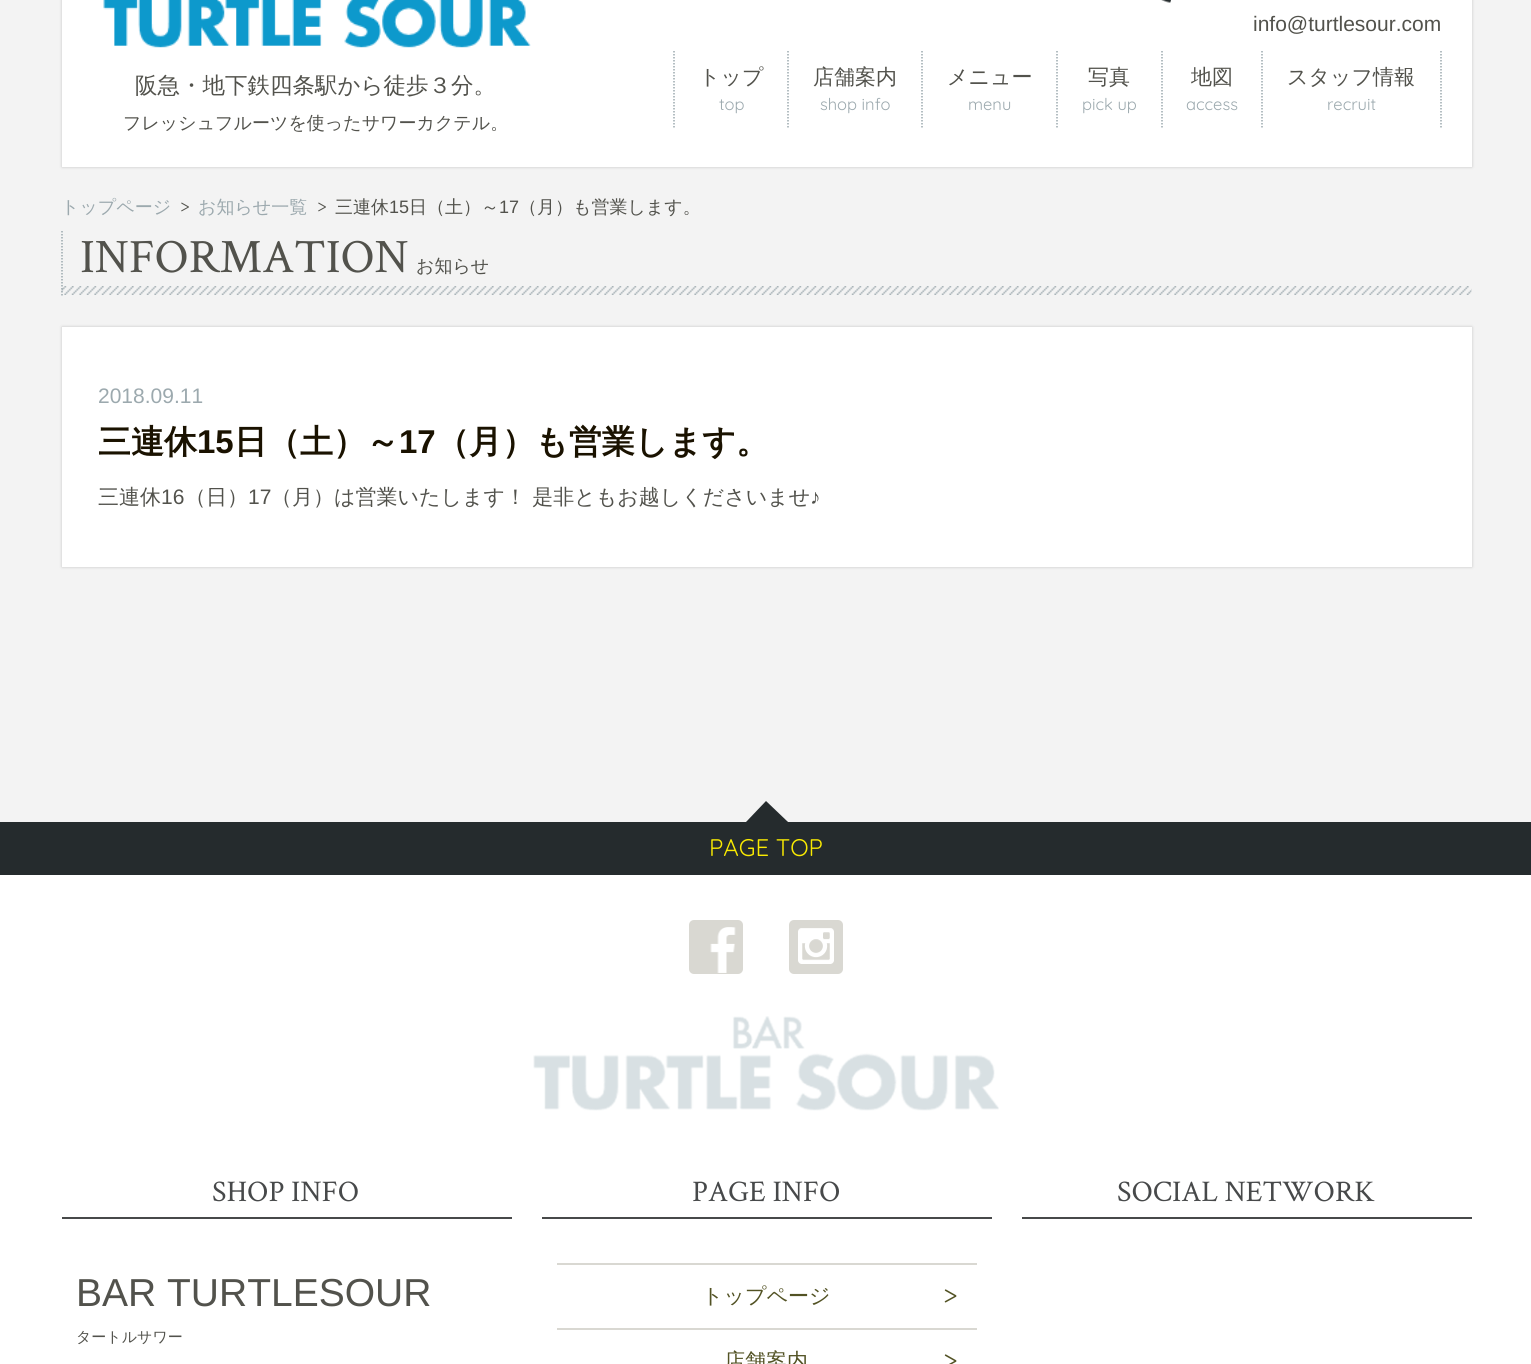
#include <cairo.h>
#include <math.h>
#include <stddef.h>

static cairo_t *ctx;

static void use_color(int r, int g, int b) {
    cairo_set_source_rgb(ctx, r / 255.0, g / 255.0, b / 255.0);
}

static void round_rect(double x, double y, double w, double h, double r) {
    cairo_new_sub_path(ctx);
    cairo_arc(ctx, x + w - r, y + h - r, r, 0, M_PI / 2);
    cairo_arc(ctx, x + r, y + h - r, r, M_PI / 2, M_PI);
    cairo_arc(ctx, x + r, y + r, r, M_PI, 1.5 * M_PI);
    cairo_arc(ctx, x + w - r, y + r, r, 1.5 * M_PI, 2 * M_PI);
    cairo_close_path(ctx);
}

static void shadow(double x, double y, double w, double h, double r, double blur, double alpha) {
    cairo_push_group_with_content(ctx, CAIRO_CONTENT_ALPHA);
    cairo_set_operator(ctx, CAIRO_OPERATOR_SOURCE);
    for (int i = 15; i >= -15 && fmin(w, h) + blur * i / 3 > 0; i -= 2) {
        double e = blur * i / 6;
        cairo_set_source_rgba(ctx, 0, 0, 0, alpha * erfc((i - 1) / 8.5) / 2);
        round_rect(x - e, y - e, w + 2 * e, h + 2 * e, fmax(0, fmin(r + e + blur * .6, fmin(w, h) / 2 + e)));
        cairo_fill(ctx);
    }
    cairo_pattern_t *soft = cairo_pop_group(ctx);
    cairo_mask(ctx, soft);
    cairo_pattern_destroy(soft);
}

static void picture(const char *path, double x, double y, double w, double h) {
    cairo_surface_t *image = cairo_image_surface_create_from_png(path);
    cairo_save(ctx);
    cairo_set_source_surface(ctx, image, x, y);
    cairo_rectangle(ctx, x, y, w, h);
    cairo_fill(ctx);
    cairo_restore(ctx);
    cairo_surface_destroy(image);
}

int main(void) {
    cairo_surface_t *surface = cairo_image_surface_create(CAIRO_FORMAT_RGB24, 1531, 1364);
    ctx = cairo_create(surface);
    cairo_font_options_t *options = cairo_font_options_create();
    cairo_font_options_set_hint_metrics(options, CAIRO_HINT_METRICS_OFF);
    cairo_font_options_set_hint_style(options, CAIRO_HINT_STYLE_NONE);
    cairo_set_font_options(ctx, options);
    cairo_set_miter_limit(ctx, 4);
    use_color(243, 243, 243);
    cairo_paint(ctx);
    use_color(0, 0, 0);
    shadow(62, -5, 1410, 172, 0, 1.5, 0.2);
    use_color(255, 255, 255);
    cairo_rectangle(ctx, 62, 0, 1410, 167);
    cairo_fill(ctx);
    picture("img1.png", 1161, 0, 10, 3);
    cairo_select_font_face(ctx, "Liberation Sans", CAIRO_FONT_SLANT_NORMAL, CAIRO_FONT_WEIGHT_NORMAL);
    cairo_set_font_size(ctx, 21);
    use_color(82, 82, 76);
    cairo_move_to(ctx, 1253, 31);
    cairo_show_text(ctx, "info@turtlesour.com");
    picture("img2.png", 103, 0, 428, 48);
    cairo_select_font_face(ctx, "WenQuanYi Zen Hei Medium", CAIRO_FONT_SLANT_NORMAL, CAIRO_FONT_WEIGHT_NORMAL);
    cairo_set_font_size(ctx, 22.5);
    cairo_move_to(ctx, 135, 93);
    cairo_show_text(ctx, "阪急・地下鉄四条駅から徒歩３分。");
    cairo_set_font_size(ctx, 18);
    cairo_move_to(ctx, 123, 129);
    cairo_show_text(ctx, "フレッシュフルーツを使ったサワーカクテル。");
    cairo_new_path(ctx);
    cairo_move_to(ctx, 674, 51);
    cairo_line_to(ctx, 674, 127.5);
    use_color(156, 169, 174);
    cairo_set_line_width(ctx, 1.5);
    cairo_set_dash(ctx, (double[]){1.5, 1.5}, 2, 0);
    cairo_stroke(ctx);
    cairo_set_font_size(ctx, 21);
    use_color(82, 82, 76);
    cairo_move_to(ctx, 699, 84);
    cairo_show_text(ctx, "トップ");
    cairo_select_font_face(ctx, "Quicksand", CAIRO_FONT_SLANT_NORMAL, CAIRO_FONT_WEIGHT_NORMAL);
    cairo_set_font_size(ctx, 16.5);
    use_color(156, 169, 174);
    cairo_move_to(ctx, 719, 110);
    cairo_show_text(ctx, "top");
    cairo_new_path(ctx);
    cairo_move_to(ctx, 788, 51);
    cairo_line_to(ctx, 788, 127.5);
    cairo_stroke(ctx);
    cairo_select_font_face(ctx, "WenQuanYi Zen Hei Medium", CAIRO_FONT_SLANT_NORMAL, CAIRO_FONT_WEIGHT_NORMAL);
    cairo_set_font_size(ctx, 21);
    use_color(82, 82, 76);
    cairo_move_to(ctx, 813, 84);
    cairo_show_text(ctx, "店舗案内");
    cairo_select_font_face(ctx, "Quicksand", CAIRO_FONT_SLANT_NORMAL, CAIRO_FONT_WEIGHT_NORMAL);
    cairo_set_font_size(ctx, 16.5);
    use_color(156, 169, 174);
    cairo_move_to(ctx, 820, 110);
    cairo_show_text(ctx, "shop info");
    cairo_new_path(ctx);
    cairo_move_to(ctx, 922, 51);
    cairo_line_to(ctx, 922, 127.5);
    cairo_stroke(ctx);
    cairo_select_font_face(ctx, "WenQuanYi Zen Hei Medium", CAIRO_FONT_SLANT_NORMAL, CAIRO_FONT_WEIGHT_NORMAL);
    cairo_set_font_size(ctx, 21);
    use_color(82, 82, 76);
    cairo_move_to(ctx, 947, 84);
    cairo_show_text(ctx, "メニュー");
    cairo_select_font_face(ctx, "Quicksand", CAIRO_FONT_SLANT_NORMAL, CAIRO_FONT_WEIGHT_NORMAL);
    cairo_set_font_size(ctx, 16.5);
    use_color(156, 169, 174);
    cairo_move_to(ctx, 968, 110);
    cairo_show_text(ctx, "menu");
    cairo_new_path(ctx);
    cairo_move_to(ctx, 1057, 51);
    cairo_line_to(ctx, 1057, 127.5);
    cairo_stroke(ctx);
    cairo_select_font_face(ctx, "WenQuanYi Zen Hei Medium", CAIRO_FONT_SLANT_NORMAL, CAIRO_FONT_WEIGHT_NORMAL);
    cairo_set_font_size(ctx, 21);
    use_color(82, 82, 76);
    cairo_move_to(ctx, 1088, 84);
    cairo_show_text(ctx, "写真");
    cairo_select_font_face(ctx, "Quicksand", CAIRO_FONT_SLANT_NORMAL, CAIRO_FONT_WEIGHT_NORMAL);
    cairo_set_font_size(ctx, 16.5);
    use_color(156, 169, 174);
    cairo_move_to(ctx, 1082, 110);
    cairo_show_text(ctx, "pick up");
    cairo_new_path(ctx);
    cairo_move_to(ctx, 1162, 51);
    cairo_line_to(ctx, 1162, 127.5);
    cairo_stroke(ctx);
    cairo_select_font_face(ctx, "WenQuanYi Zen Hei Medium", CAIRO_FONT_SLANT_NORMAL, CAIRO_FONT_WEIGHT_NORMAL);
    cairo_set_font_size(ctx, 21);
    use_color(82, 82, 76);
    cairo_move_to(ctx, 1191, 84);
    cairo_show_text(ctx, "地図");
    cairo_select_font_face(ctx, "Quicksand", CAIRO_FONT_SLANT_NORMAL, CAIRO_FONT_WEIGHT_NORMAL);
    cairo_set_font_size(ctx, 16.5);
    use_color(156, 169, 174);
    cairo_move_to(ctx, 1186, 110);
    cairo_show_text(ctx, "access");
    cairo_new_path(ctx);
    cairo_move_to(ctx, 1441, 51);
    cairo_line_to(ctx, 1441, 127.5);
    cairo_stroke(ctx);
    cairo_new_path(ctx);
    cairo_move_to(ctx, 1262, 51);
    cairo_line_to(ctx, 1262, 127.5);
    cairo_stroke(ctx);
    cairo_select_font_face(ctx, "WenQuanYi Zen Hei Medium", CAIRO_FONT_SLANT_NORMAL, CAIRO_FONT_WEIGHT_NORMAL);
    cairo_set_font_size(ctx, 21);
    use_color(82, 82, 76);
    cairo_move_to(ctx, 1287, 84);
    cairo_show_text(ctx, "スタッフ情報");
    cairo_select_font_face(ctx, "Quicksand", CAIRO_FONT_SLANT_NORMAL, CAIRO_FONT_WEIGHT_NORMAL);
    cairo_set_font_size(ctx, 16.5);
    use_color(156, 169, 174);
    cairo_move_to(ctx, 1327, 110);
    cairo_show_text(ctx, "recruit");
    cairo_select_font_face(ctx, "WenQuanYi Zen Hei Medium", CAIRO_FONT_SLANT_NORMAL, CAIRO_FONT_WEIGHT_NORMAL);
    cairo_set_font_size(ctx, 18);
    cairo_move_to(ctx, 61, 213);
    cairo_show_text(ctx, "トップページ");
    cairo_select_font_face(ctx, "Quicksand", CAIRO_FONT_SLANT_NORMAL, CAIRO_FONT_WEIGHT_NORMAL);
    use_color(82, 82, 76);
    cairo_move_to(ctx, 180, 213);
    cairo_show_text(ctx, ">");
    cairo_select_font_face(ctx, "WenQuanYi Zen Hei Medium", CAIRO_FONT_SLANT_NORMAL, CAIRO_FONT_WEIGHT_NORMAL);
    use_color(156, 169, 174);
    cairo_move_to(ctx, 198, 213);
    cairo_show_text(ctx, "お知らせ一覧");
    cairo_select_font_face(ctx, "Quicksand", CAIRO_FONT_SLANT_NORMAL, CAIRO_FONT_WEIGHT_NORMAL);
    use_color(82, 82, 76);
    cairo_move_to(ctx, 317, 213);
    cairo_show_text(ctx, ">");
    cairo_select_font_face(ctx, "WenQuanYi Zen Hei Medium", CAIRO_FONT_SLANT_NORMAL, CAIRO_FONT_WEIGHT_NORMAL);
    cairo_move_to(ctx, 335, 213);
    cairo_show_text(ctx, "三連休");
    cairo_select_font_face(ctx, "Liberation Sans", CAIRO_FONT_SLANT_NORMAL, CAIRO_FONT_WEIGHT_NORMAL);
    cairo_move_to(ctx, 389, 213);
    cairo_show_text(ctx, "15");
    cairo_select_font_face(ctx, "WenQuanYi Zen Hei Medium", CAIRO_FONT_SLANT_NORMAL, CAIRO_FONT_WEIGHT_NORMAL);
    cairo_move_to(ctx, 409, 213);
    cairo_show_text(ctx, "日（土）～");
    cairo_select_font_face(ctx, "Liberation Sans", CAIRO_FONT_SLANT_NORMAL, CAIRO_FONT_WEIGHT_NORMAL);
    cairo_move_to(ctx, 499, 213);
    cairo_show_text(ctx, "17");
    cairo_select_font_face(ctx, "WenQuanYi Zen Hei Medium", CAIRO_FONT_SLANT_NORMAL, CAIRO_FONT_WEIGHT_NORMAL);
    cairo_move_to(ctx, 519, 213);
    cairo_show_text(ctx, "（月）も営業します。");
    picture("img3.png", 61, 286, 1411, 9);
    cairo_new_path(ctx);
    cairo_move_to(ctx, 62, 231);
    cairo_line_to(ctx, 62, 297);
    use_color(156, 169, 174);
    cairo_stroke(ctx);
    cairo_select_font_face(ctx, "Crimson Text", CAIRO_FONT_SLANT_NORMAL, CAIRO_FONT_WEIGHT_NORMAL);
    cairo_set_font_size(ctx, 48);
    use_color(82, 82, 76);
    cairo_move_to(ctx, 80, 272);
    cairo_show_text(ctx, "INFORMATION");
    cairo_select_font_face(ctx, "WenQuanYi Zen Hei Medium", CAIRO_FONT_SLANT_NORMAL, CAIRO_FONT_WEIGHT_NORMAL);
    cairo_set_font_size(ctx, 18);
    cairo_move_to(ctx, 416, 272);
    cairo_show_text(ctx, "お知らせ");
    use_color(0, 0, 0);
    shadow(62, 327, 1410, 240, 0, 1.5, 0.2);
    use_color(255, 255, 255);
    cairo_rectangle(ctx, 62, 327, 1410, 240);
    cairo_fill(ctx);
    cairo_select_font_face(ctx, "Liberation Sans", CAIRO_FONT_SLANT_NORMAL, CAIRO_FONT_WEIGHT_NORMAL);
    cairo_set_font_size(ctx, 21);
    use_color(156, 169, 174);
    cairo_move_to(ctx, 98, 403);
    cairo_show_text(ctx, "2018.09.11");
    cairo_select_font_face(ctx, "WenQuanYi Zen Hei", CAIRO_FONT_SLANT_NORMAL, CAIRO_FONT_WEIGHT_BOLD);
    cairo_set_font_size(ctx, 33);
    use_color(26, 18, 0);
    cairo_move_to(ctx, 98, 453);
    cairo_show_text(ctx, "三連休");
    cairo_select_font_face(ctx, "Liberation Sans", CAIRO_FONT_SLANT_NORMAL, CAIRO_FONT_WEIGHT_BOLD);
    cairo_move_to(ctx, 197, 453);
    cairo_show_text(ctx, "15");
    cairo_select_font_face(ctx, "WenQuanYi Zen Hei", CAIRO_FONT_SLANT_NORMAL, CAIRO_FONT_WEIGHT_BOLD);
    cairo_move_to(ctx, 234, 453);
    cairo_show_text(ctx, "日（土）～");
    cairo_select_font_face(ctx, "Liberation Sans", CAIRO_FONT_SLANT_NORMAL, CAIRO_FONT_WEIGHT_BOLD);
    cairo_move_to(ctx, 399, 453);
    cairo_show_text(ctx, "17");
    cairo_select_font_face(ctx, "WenQuanYi Zen Hei", CAIRO_FONT_SLANT_NORMAL, CAIRO_FONT_WEIGHT_BOLD);
    cairo_move_to(ctx, 436, 453);
    cairo_show_text(ctx, "（月）も営業します。");
    cairo_select_font_face(ctx, "WenQuanYi Zen Hei Medium", CAIRO_FONT_SLANT_NORMAL, CAIRO_FONT_WEIGHT_NORMAL);
    cairo_set_font_size(ctx, 21);
    use_color(82, 82, 76);
    cairo_move_to(ctx, 98, 504);
    cairo_show_text(ctx, "三連休");
    cairo_select_font_face(ctx, "Liberation Sans", CAIRO_FONT_SLANT_NORMAL, CAIRO_FONT_WEIGHT_NORMAL);
    cairo_move_to(ctx, 161, 504);
    cairo_show_text(ctx, "16");
    cairo_select_font_face(ctx, "WenQuanYi Zen Hei Medium", CAIRO_FONT_SLANT_NORMAL, CAIRO_FONT_WEIGHT_NORMAL);
    cairo_move_to(ctx, 185, 504);
    cairo_show_text(ctx, "（日）");
    cairo_select_font_face(ctx, "Liberation Sans", CAIRO_FONT_SLANT_NORMAL, CAIRO_FONT_WEIGHT_NORMAL);
    cairo_move_to(ctx, 248, 504);
    cairo_show_text(ctx, "17");
    cairo_select_font_face(ctx, "WenQuanYi Zen Hei Medium", CAIRO_FONT_SLANT_NORMAL, CAIRO_FONT_WEIGHT_NORMAL);
    cairo_move_to(ctx, 271, 504);
    cairo_show_text(ctx, "（月）は営業いたします！ 是非ともお越しくださいませ");
    cairo_select_font_face(ctx, "Liberation Sans", CAIRO_FONT_SLANT_NORMAL, CAIRO_FONT_WEIGHT_NORMAL);
    cairo_move_to(ctx, 810, 504);
    cairo_show_text(ctx, "♪");
    use_color(37, 43, 45);
    cairo_rectangle(ctx, 0, 822, 1531, 53);
    cairo_fill(ctx);
    cairo_new_path(ctx);
    cairo_move_to(ctx, 788, 822);
    cairo_line_to(ctx, 746, 822);
    cairo_line_to(ctx, 766, 801);
    cairo_close_path(ctx);
    cairo_fill(ctx);
    cairo_select_font_face(ctx, "Quicksand", CAIRO_FONT_SLANT_NORMAL, CAIRO_FONT_WEIGHT_NORMAL);
    cairo_set_font_size(ctx, 24);
    use_color(250, 234, 1);
    cairo_move_to(ctx, 709, 856);
    cairo_show_text(ctx, "PAGE TOP");
    use_color(255, 255, 255);
    cairo_rectangle(ctx, 0, 875, 1531, 489);
    cairo_fill(ctx);
    use_color(217, 216, 210);
    round_rect(689, 920, 54, 54, 5);
    cairo_fill(ctx);
    picture("img4.png", 710, 927, 26, 46);
    round_rect(789, 920, 54, 54, 5);
    cairo_fill(ctx);
    picture("img5.png", 798, 928, 36, 36);
    picture("img6.png", 533, 1016, 466, 95);
    use_color(71, 73, 74);
    cairo_rectangle(ctx, 62, 1217, 450, 2);
    cairo_fill(ctx);
    cairo_select_font_face(ctx, "Crimson Text", CAIRO_FONT_SLANT_NORMAL, CAIRO_FONT_WEIGHT_NORMAL);
    cairo_set_font_size(ctx, 30);
    cairo_move_to(ctx, 212, 1201);
    cairo_show_text(ctx, "SHOP INFO");
    cairo_select_font_face(ctx, "Liberation Sans", CAIRO_FONT_SLANT_NORMAL, CAIRO_FONT_WEIGHT_NORMAL);
    cairo_set_font_size(ctx, 39);
    use_color(82, 82, 76);
    cairo_move_to(ctx, 76, 1306);
    cairo_show_text(ctx, "BAR TURTLESOUR");
    cairo_select_font_face(ctx, "WenQuanYi Zen Hei Medium", CAIRO_FONT_SLANT_NORMAL, CAIRO_FONT_WEIGHT_NORMAL);
    cairo_set_font_size(ctx, 15);
    cairo_move_to(ctx, 76, 1342);
    cairo_show_text(ctx, "タートルサワー");
    use_color(71, 73, 74);
    cairo_rectangle(ctx, 542, 1217, 450, 2);
    cairo_fill(ctx);
    cairo_select_font_face(ctx, "Crimson Text", CAIRO_FONT_SLANT_NORMAL, CAIRO_FONT_WEIGHT_NORMAL);
    cairo_set_font_size(ctx, 30);
    cairo_move_to(ctx, 692, 1201);
    cairo_show_text(ctx, "PAGE INFO");
    use_color(217, 216, 210);
    cairo_rectangle(ctx, 557, 1263, 420, 2);
    cairo_fill(ctx);
    cairo_select_font_face(ctx, "WenQuanYi Zen Hei Medium", CAIRO_FONT_SLANT_NORMAL, CAIRO_FONT_WEIGHT_NORMAL);
    cairo_set_font_size(ctx, 21);
    use_color(82, 82, 36);
    cairo_move_to(ctx, 702, 1303);
    cairo_show_text(ctx, "トップページ");
    cairo_select_font_face(ctx, "Quicksand", CAIRO_FONT_SLANT_NORMAL, CAIRO_FONT_WEIGHT_NORMAL);
    cairo_set_font_size(ctx, 27);
    cairo_move_to(ctx, 943, 1305);
    cairo_show_text(ctx, ">");
    use_color(217, 216, 210);
    cairo_rectangle(ctx, 557, 1328, 420, 2);
    cairo_fill(ctx);
    cairo_select_font_face(ctx, "WenQuanYi Zen Hei Medium", CAIRO_FONT_SLANT_NORMAL, CAIRO_FONT_WEIGHT_NORMAL);
    cairo_set_font_size(ctx, 21);
    use_color(82, 82, 36);
    cairo_move_to(ctx, 724, 1368);
    cairo_show_text(ctx, "店舗案内");
    cairo_select_font_face(ctx, "Quicksand", CAIRO_FONT_SLANT_NORMAL, CAIRO_FONT_WEIGHT_NORMAL);
    cairo_set_font_size(ctx, 27);
    cairo_move_to(ctx, 943, 1370);
    cairo_show_text(ctx, ">");
    use_color(71, 73, 74);
    cairo_rectangle(ctx, 1022, 1217, 450, 2);
    cairo_fill(ctx);
    cairo_select_font_face(ctx, "Crimson Text", CAIRO_FONT_SLANT_NORMAL, CAIRO_FONT_WEIGHT_NORMAL);
    cairo_set_font_size(ctx, 30);
    cairo_move_to(ctx, 1117, 1201);
    cairo_show_text(ctx, "SOCIAL NETWORK");
    cairo_surface_write_to_png(surface, "result.png");
    cairo_font_options_destroy(options);
    cairo_destroy(ctx);
    cairo_surface_destroy(surface);
    return 0;
}
